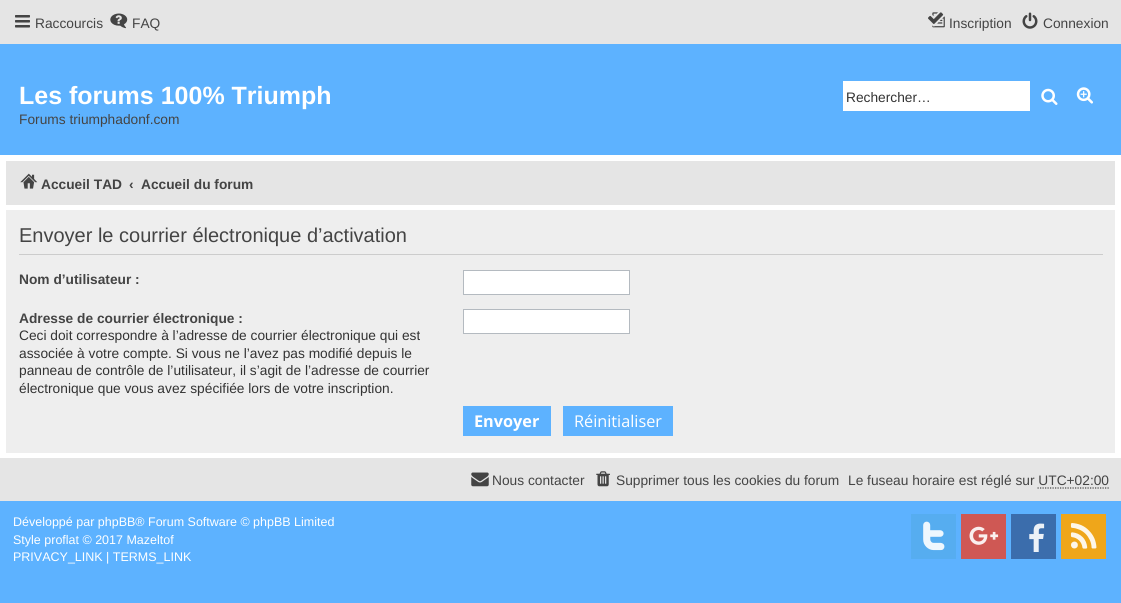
#include <cairo.h>
#include <math.h>
#include <stddef.h>

static cairo_t *ctx;

static void use_color(int r, int g, int b) {
    cairo_set_source_rgb(ctx, r / 255.0, g / 255.0, b / 255.0);
}

static void picture(const char *path, double x, double y, double w, double h) {
    cairo_surface_t *image = cairo_image_surface_create_from_png(path);
    cairo_save(ctx);
    cairo_set_source_surface(ctx, image, x, y);
    cairo_rectangle(ctx, x, y, w, h);
    cairo_fill(ctx);
    cairo_restore(ctx);
    cairo_surface_destroy(image);
}

int main(void) {
    cairo_surface_t *surface = cairo_image_surface_create(CAIRO_FORMAT_RGB24, 1121, 603);
    ctx = cairo_create(surface);
    cairo_font_options_t *options = cairo_font_options_create();
    cairo_font_options_set_hint_metrics(options, CAIRO_HINT_METRICS_OFF);
    cairo_font_options_set_hint_style(options, CAIRO_HINT_STYLE_NONE);
    cairo_set_font_options(ctx, options);
    cairo_set_miter_limit(ctx, 4);
    use_color(255, 255, 255);
    cairo_paint(ctx);
    use_color(229, 229, 229);
    cairo_rectangle(ctx, 0, 0, 1121, 44);
    cairo_fill(ctx);
    picture("img1.png", 15, 15, 15, 13);
    cairo_select_font_face(ctx, "Liberation Sans", CAIRO_FONT_SLANT_NORMAL, CAIRO_FONT_WEIGHT_NORMAL);
    cairo_set_font_size(ctx, 13.75);
    use_color(68, 68, 68);
    cairo_move_to(ctx, 35, 28);
    cairo_show_text(ctx, "Raccourcis");
    picture("img2.png", 110, 13, 18, 16);
    cairo_move_to(ctx, 132, 28);
    cairo_show_text(ctx, "FAQ");
    picture("img3.png", 928, 12, 17, 16);
    cairo_move_to(ctx, 949, 28);
    cairo_show_text(ctx, "Inscription");
    picture("img4.png", 1022, 12, 16, 17);
    cairo_move_to(ctx, 1043, 28);
    cairo_show_text(ctx, "Connexion");
    use_color(93, 178, 255);
    cairo_rectangle(ctx, 0, 44, 1121, 111);
    cairo_fill(ctx);
    cairo_select_font_face(ctx, "Liberation Sans", CAIRO_FONT_SLANT_NORMAL, CAIRO_FONT_WEIGHT_BOLD);
    cairo_set_font_size(ctx, 25);
    use_color(255, 255, 255);
    cairo_move_to(ctx, 19, 104);
    cairo_show_text(ctx, "Les forums 100% Triumph");
    cairo_select_font_face(ctx, "Liberation Sans", CAIRO_FONT_SLANT_NORMAL, CAIRO_FONT_WEIGHT_NORMAL);
    cairo_set_font_size(ctx, 13.75);
    use_color(68, 68, 68);
    cairo_move_to(ctx, 19, 124);
    cairo_show_text(ctx, "Forums triumphadonf.com");
    use_color(255, 255, 255);
    cairo_rectangle(ctx, 843, 81, 187, 30);
    cairo_fill(ctx);
    use_color(51, 51, 51);
    cairo_move_to(ctx, 846, 102);
    cairo_show_text(ctx, "Rechercher…");
    picture("img5.png", 1041, 88, 17, 17);
    picture("img6.png", 1076, 87, 17, 17);
    use_color(229, 229, 229);
    cairo_rectangle(ctx, 6, 161, 1109, 44);
    cairo_fill(ctx);
    picture("img7.png", 20, 173, 18, 16);
    cairo_select_font_face(ctx, "Liberation Sans", CAIRO_FONT_SLANT_NORMAL, CAIRO_FONT_WEIGHT_BOLD);
    use_color(68, 68, 68);
    cairo_move_to(ctx, 41, 189);
    cairo_show_text(ctx, "Accueil TAD");
    cairo_move_to(ctx, 129, 189);
    cairo_show_text(ctx, "‹");
    cairo_move_to(ctx, 141, 189);
    cairo_show_text(ctx, "Accueil du forum");
    use_color(238, 238, 238);
    cairo_rectangle(ctx, 6, 210, 1109, 243);
    cairo_fill(ctx);
    use_color(204, 204, 204);
    cairo_rectangle(ctx, 19, 254, 1084, 1);
    cairo_fill(ctx);
    cairo_select_font_face(ctx, "Liberation Sans", CAIRO_FONT_SLANT_NORMAL, CAIRO_FONT_WEIGHT_NORMAL);
    cairo_set_font_size(ctx, 20);
    use_color(68, 68, 68);
    cairo_move_to(ctx, 19, 242);
    cairo_show_text(ctx, "Envoyer le courrier électronique d’activation");
    cairo_select_font_face(ctx, "Liberation Sans", CAIRO_FONT_SLANT_NORMAL, CAIRO_FONT_WEIGHT_BOLD);
    cairo_set_font_size(ctx, 13.75);
    cairo_move_to(ctx, 19, 284);
    cairo_show_text(ctx, "Nom d’utilisateur :");
    use_color(255, 255, 255);
    cairo_rectangle(ctx, 463.5, 270.5, 166, 24);
    cairo_fill_preserve(ctx);
    use_color(180, 186, 192);
    cairo_set_line_width(ctx, 1);
    cairo_stroke(ctx);
    use_color(68, 68, 68);
    cairo_move_to(ctx, 19, 323);
    cairo_show_text(ctx, "Adresse de courrier électronique :");
    cairo_select_font_face(ctx, "Liberation Sans", CAIRO_FONT_SLANT_NORMAL, CAIRO_FONT_WEIGHT_NORMAL);
    use_color(51, 51, 51);
    cairo_move_to(ctx, 19, 340);
    cairo_show_text(ctx, "Ceci doit correspondre à l’adresse de courrier électronique qui est");
    cairo_move_to(ctx, 19, 358);
    cairo_show_text(ctx, "associée à votre compte. Si vous ne l’avez pas modifié depuis le");
    cairo_move_to(ctx, 19, 375);
    cairo_show_text(ctx, "panneau de contrôle de l’utilisateur, il s’agit de l’adresse de courrier");
    cairo_move_to(ctx, 19, 393);
    cairo_show_text(ctx, "électronique que vous avez spécifiée lors de votre inscription.");
    use_color(255, 255, 255);
    cairo_rectangle(ctx, 463.5, 309.5, 166, 24);
    cairo_fill_preserve(ctx);
    use_color(180, 186, 192);
    cairo_stroke(ctx);
    use_color(93, 178, 255);
    cairo_rectangle(ctx, 463, 406, 88, 30);
    cairo_fill(ctx);
    cairo_select_font_face(ctx, "Open Sans", CAIRO_FONT_SLANT_NORMAL, CAIRO_FONT_WEIGHT_BOLD);
    cairo_set_font_size(ctx, 16.25);
    use_color(255, 255, 255);
    cairo_move_to(ctx, 474, 427);
    cairo_show_text(ctx, "Envoyer");
    use_color(93, 178, 255);
    cairo_rectangle(ctx, 563, 406, 110, 30);
    cairo_fill(ctx);
    cairo_select_font_face(ctx, "Open Sans", CAIRO_FONT_SLANT_NORMAL, CAIRO_FONT_WEIGHT_NORMAL);
    use_color(255, 255, 255);
    cairo_move_to(ctx, 574, 427);
    cairo_show_text(ctx, "Réinitialiser");
    use_color(229, 229, 229);
    cairo_rectangle(ctx, 0, 458, 1121, 43);
    cairo_fill(ctx);
    picture("img8.png", 471, 472, 18, 15);
    cairo_select_font_face(ctx, "Liberation Sans", CAIRO_FONT_SLANT_NORMAL, CAIRO_FONT_WEIGHT_NORMAL);
    cairo_set_font_size(ctx, 13.75);
    use_color(68, 68, 68);
    cairo_move_to(ctx, 492, 485);
    cairo_show_text(ctx, "Nous contacter");
    picture("img9.png", 596, 471, 14, 16);
    cairo_move_to(ctx, 616, 485);
    cairo_show_text(ctx, "Supprimer tous les cookies du forum");
    cairo_move_to(ctx, 848, 485);
    cairo_show_text(ctx, "Le fuseau horaire est réglé sur UTC+02:00");
    cairo_new_path(ctx);
    cairo_move_to(ctx, 1037.5, 488);
    cairo_line_to(ctx, 1109, 488);
    cairo_set_line_width(ctx, 1.2);
    cairo_set_dash(ctx, (double[]){1.25, 1.25}, 2, 0);
    cairo_stroke(ctx);
    use_color(93, 178, 255);
    cairo_rectangle(ctx, 0, 501, 1121, 102);
    cairo_fill(ctx);
    cairo_set_font_size(ctx, 12.5);
    use_color(255, 255, 255);
    cairo_move_to(ctx, 13, 526);
    cairo_show_text(ctx, "Développé par phpBB® Forum Software © phpBB Limited");
    cairo_move_to(ctx, 13, 544);
    cairo_show_text(ctx, "Style proflat © 2017 Mazeltof");
    cairo_move_to(ctx, 13, 561);
    cairo_show_text(ctx, "PRIVACY_LINK | TERMS_LINK");
    use_color(86, 173, 240);
    cairo_rectangle(ctx, 911, 514, 45, 45);
    cairo_fill(ctx);
    picture("img10.png", 923, 521, 22, 30);
    use_color(207, 88, 84);
    cairo_rectangle(ctx, 961, 514, 45, 45);
    cairo_fill(ctx);
    picture("img11.png", 969, 526, 30, 19);
    use_color(59, 109, 172);
    cairo_rectangle(ctx, 1011, 514, 45, 45);
    cairo_fill(ctx);
    picture("img12.png", 1029, 523, 16, 29);
    use_color(239, 166, 26);
    cairo_rectangle(ctx, 1061, 514, 45, 45);
    cairo_fill(ctx);
    picture("img13.png", 1070, 523, 27, 26);
    cairo_surface_write_to_png(surface, "result.png");
    cairo_font_options_destroy(options);
    cairo_destroy(ctx);
    cairo_surface_destroy(surface);
    return 0;
}
